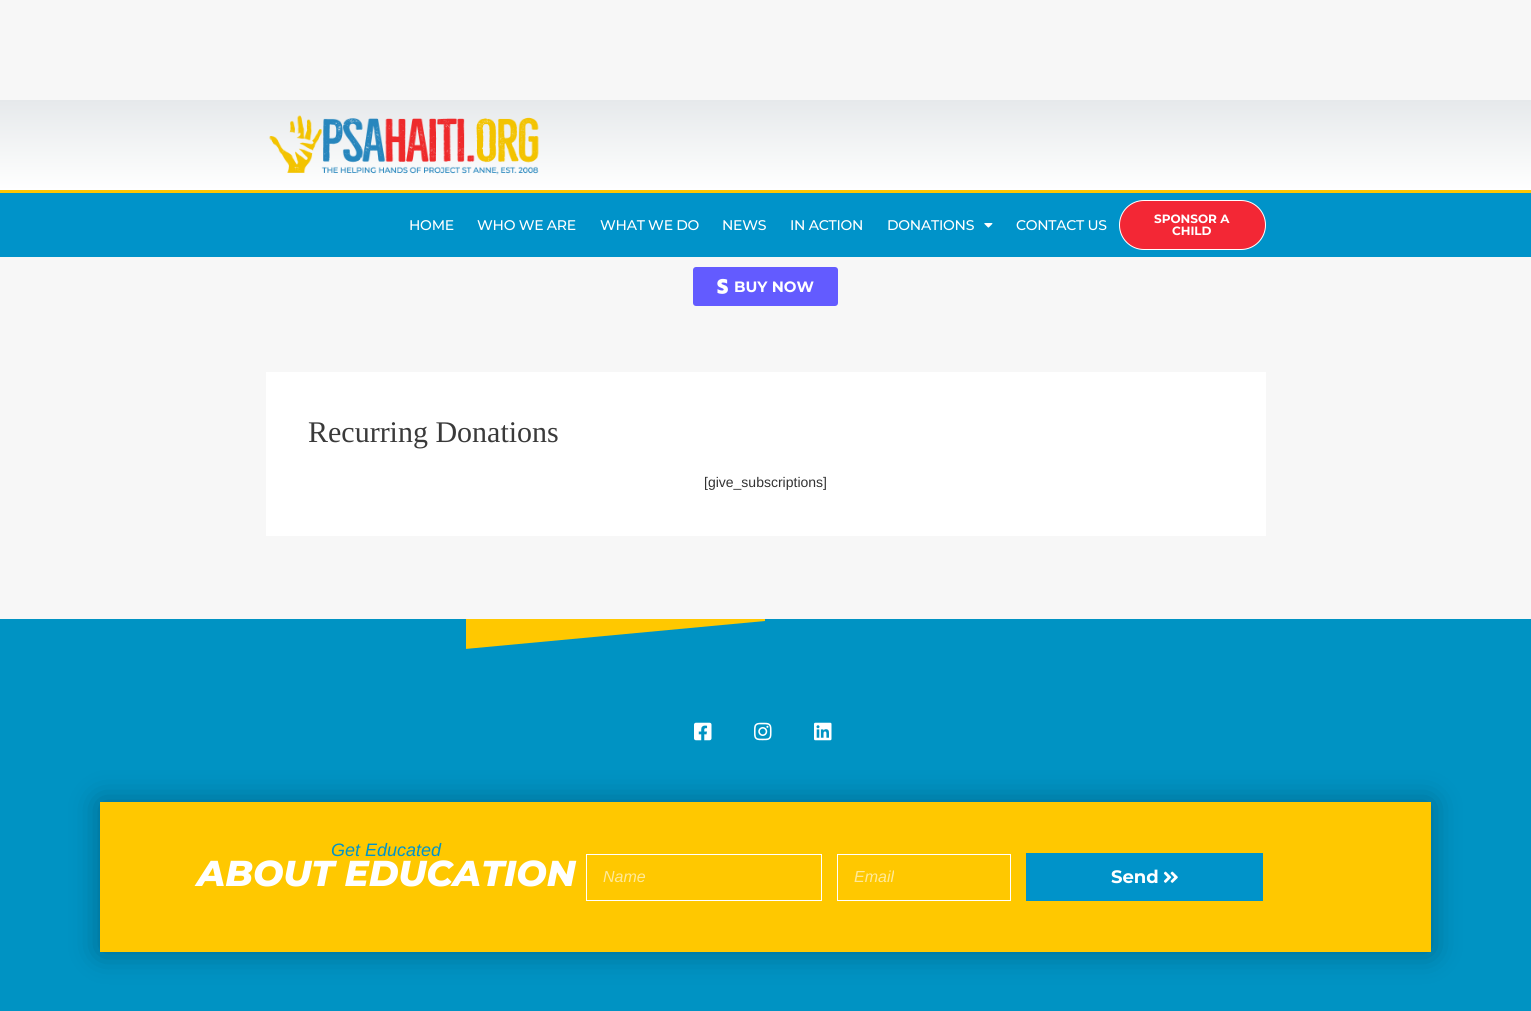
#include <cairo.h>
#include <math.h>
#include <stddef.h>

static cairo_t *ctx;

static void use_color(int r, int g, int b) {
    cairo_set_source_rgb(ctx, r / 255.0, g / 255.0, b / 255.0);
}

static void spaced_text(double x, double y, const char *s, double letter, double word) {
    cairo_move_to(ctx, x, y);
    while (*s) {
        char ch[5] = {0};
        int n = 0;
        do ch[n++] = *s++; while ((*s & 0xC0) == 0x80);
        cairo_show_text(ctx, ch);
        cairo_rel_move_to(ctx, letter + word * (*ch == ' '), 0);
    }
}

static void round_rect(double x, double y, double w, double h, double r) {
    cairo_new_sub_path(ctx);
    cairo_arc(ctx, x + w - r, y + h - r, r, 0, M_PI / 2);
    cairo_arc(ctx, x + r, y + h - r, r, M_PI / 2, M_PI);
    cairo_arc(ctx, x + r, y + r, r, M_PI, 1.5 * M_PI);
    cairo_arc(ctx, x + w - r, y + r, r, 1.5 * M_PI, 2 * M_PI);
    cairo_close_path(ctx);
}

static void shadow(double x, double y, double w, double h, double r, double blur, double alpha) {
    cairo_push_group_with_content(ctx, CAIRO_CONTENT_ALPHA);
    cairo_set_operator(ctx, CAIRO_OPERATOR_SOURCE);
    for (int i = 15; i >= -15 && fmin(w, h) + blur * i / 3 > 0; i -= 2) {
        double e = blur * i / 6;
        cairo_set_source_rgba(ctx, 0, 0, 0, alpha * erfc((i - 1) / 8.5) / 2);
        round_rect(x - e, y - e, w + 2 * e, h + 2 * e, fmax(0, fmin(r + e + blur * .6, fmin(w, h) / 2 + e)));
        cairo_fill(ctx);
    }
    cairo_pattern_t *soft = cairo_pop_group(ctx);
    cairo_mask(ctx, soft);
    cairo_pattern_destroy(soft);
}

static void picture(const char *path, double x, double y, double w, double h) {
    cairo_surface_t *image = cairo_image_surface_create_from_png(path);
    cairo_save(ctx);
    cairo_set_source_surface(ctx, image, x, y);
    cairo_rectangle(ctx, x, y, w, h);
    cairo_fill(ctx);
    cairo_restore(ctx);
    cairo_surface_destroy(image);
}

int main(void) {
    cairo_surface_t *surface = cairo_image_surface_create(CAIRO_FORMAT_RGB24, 1531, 1011);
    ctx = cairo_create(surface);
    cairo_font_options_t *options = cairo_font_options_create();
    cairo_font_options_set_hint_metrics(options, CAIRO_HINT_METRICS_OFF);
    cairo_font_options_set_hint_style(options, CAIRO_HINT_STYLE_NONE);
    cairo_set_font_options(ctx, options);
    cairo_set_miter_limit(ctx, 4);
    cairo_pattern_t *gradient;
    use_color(247, 247, 247);
    cairo_paint(ctx);
    gradient = cairo_pattern_create_linear(766, 100, 766, 190);
    cairo_pattern_add_color_stop_rgba(gradient, 0, 0.902, 0.914, 0.922, 1);
    cairo_pattern_add_color_stop_rgba(gradient, 1, 1, 1, 1, 1);
    cairo_set_source(ctx, gradient);
    cairo_pattern_destroy(gradient);
    cairo_rectangle(ctx, 0, 100, 1531, 90);
    cairo_fill(ctx);
    picture("img1.png", 269, 115, 270, 60);
    use_color(0, 147, 201);
    cairo_rectangle(ctx, 0, 193, 1531, 64);
    cairo_fill(ctx);
    use_color(255, 198, 0);
    cairo_rectangle(ctx, 0, 190, 1531, 3);
    cairo_fill(ctx);
    cairo_select_font_face(ctx, "Montserrat Medium", CAIRO_FONT_SLANT_NORMAL, CAIRO_FONT_WEIGHT_NORMAL);
    cairo_set_font_size(ctx, 14);
    use_color(255, 255, 255);
    spaced_text(409, 230, "HOME", -0.25, 0);
    spaced_text(477, 230, "WHO WE ARE", -0.25, 0);
    spaced_text(600, 230, "WHAT WE DO", -0.25, 0);
    spaced_text(722, 230, "NEWS", -0.25, 0);
    spaced_text(790, 230, "IN ACTION", -0.25, 0);
    spaced_text(887, 230, "DONATIONS", -0.25, 0);
    picture("img2.png", 984, 223, 9, 5);
    spaced_text(1016, 230, "CONTACT US", -0.25, 0);
    use_color(243, 39, 53);
    round_rect(1119.5, 200.5, 146, 49, 24.5);
    cairo_fill_preserve(ctx);
    use_color(255, 255, 255);
    cairo_set_line_width(ctx, 1);
    cairo_stroke(ctx);
    cairo_select_font_face(ctx, "Montserrat", CAIRO_FONT_SLANT_NORMAL, CAIRO_FONT_WEIGHT_BOLD);
    cairo_set_font_size(ctx, 12);
    cairo_move_to(ctx, 1154, 223);
    cairo_show_text(ctx, "SPONSOR A");
    cairo_move_to(ctx, 1172, 235);
    cairo_show_text(ctx, "CHILD");
    use_color(99, 91, 255);
    round_rect(693, 267, 145, 39, 3);
    cairo_fill(ctx);
    picture("img3.png", 717, 278, 11, 16);
    cairo_set_font_size(ctx, 15);
    use_color(255, 255, 255);
    cairo_move_to(ctx, 734, 292);
    cairo_show_text(ctx, "BUY NOW");
    cairo_rectangle(ctx, 266, 372, 1000, 164);
    cairo_fill(ctx);
    cairo_select_font_face(ctx, "Liberation Serif", CAIRO_FONT_SLANT_NORMAL, CAIRO_FONT_WEIGHT_NORMAL);
    cairo_set_font_size(ctx, 30);
    use_color(58, 58, 58);
    cairo_move_to(ctx, 308, 442);
    cairo_show_text(ctx, "Recurring Donations");
    cairo_select_font_face(ctx, "Liberation Sans", CAIRO_FONT_SLANT_NORMAL, CAIRO_FONT_WEIGHT_NORMAL);
    cairo_set_font_size(ctx, 14);
    use_color(51, 51, 51);
    cairo_move_to(ctx, 704, 487);
    cairo_show_text(ctx, "[give_subscriptions]");
    use_color(0, 147, 195);
    cairo_rectangle(ctx, 0, 619, 1531, 392);
    cairo_fill(ctx);
    cairo_save(ctx);
    cairo_rectangle(ctx, 466, 619, 300, 30);
    cairo_clip(ctx);
    use_color(255, 200, 0);
    cairo_new_path(ctx);
    cairo_move_to(ctx, 765, 621);
    cairo_line_to(ctx, 765, 619);
    cairo_line_to(ctx, 465, 619);
    cairo_line_to(ctx, 465, 649);
    cairo_close_path(ctx);
    cairo_fill(ctx);
    cairo_restore(ctx);
    picture("img4.png", 694, 722, 18, 19);
    picture("img5.png", 754, 722, 18, 19);
    picture("img6.png", 814, 722, 18, 19);
    use_color(0, 0, 0);
    shadow(100, 802, 1331, 150, 0, 15, 0.3);
    use_color(255, 200, 0);
    cairo_rectangle(ctx, 100, 802, 1331, 150);
    cairo_fill(ctx);
    cairo_select_font_face(ctx, "Liberation Sans", CAIRO_FONT_SLANT_ITALIC, CAIRO_FONT_WEIGHT_NORMAL);
    cairo_set_font_size(ctx, 18);
    use_color(0, 147, 201);
    cairo_move_to(ctx, 331, 856);
    cairo_show_text(ctx, "Get Educated");
    cairo_select_font_face(ctx, "Montserrat ExtraBold", CAIRO_FONT_SLANT_ITALIC, CAIRO_FONT_WEIGHT_NORMAL);
    cairo_set_font_size(ctx, 36);
    use_color(255, 255, 255);
    cairo_move_to(ctx, 197, 886);
    cairo_show_text(ctx, "ABOUT EDUCATION");
    cairo_rectangle(ctx, 586.5, 854.5, 235, 46);
    cairo_stroke(ctx);
    cairo_select_font_face(ctx, "Liberation Sans", CAIRO_FONT_SLANT_ITALIC, CAIRO_FONT_WEIGHT_NORMAL);
    cairo_set_font_size(ctx, 16);
    use_color(255, 233, 153);
    cairo_move_to(ctx, 603, 882);
    cairo_show_text(ctx, "Name");
    cairo_rectangle(ctx, 837.5, 854.5, 173, 46);
    use_color(255, 255, 255);
    cairo_stroke(ctx);
    use_color(255, 233, 153);
    cairo_move_to(ctx, 854, 882);
    cairo_show_text(ctx, "Email");
    use_color(0, 147, 201);
    cairo_rectangle(ctx, 1026, 853, 237, 48);
    cairo_fill(ctx);
    cairo_select_font_face(ctx, "Montserrat", CAIRO_FONT_SLANT_NORMAL, CAIRO_FONT_WEIGHT_BOLD);
    cairo_set_font_size(ctx, 18);
    use_color(255, 255, 255);
    cairo_move_to(ctx, 1111, 883);
    cairo_show_text(ctx, "Send");
    picture("img7.png", 1163, 871, 15, 12);
    cairo_surface_write_to_png(surface, "result.png");
    cairo_font_options_destroy(options);
    cairo_destroy(ctx);
    cairo_surface_destroy(surface);
    return 0;
}
